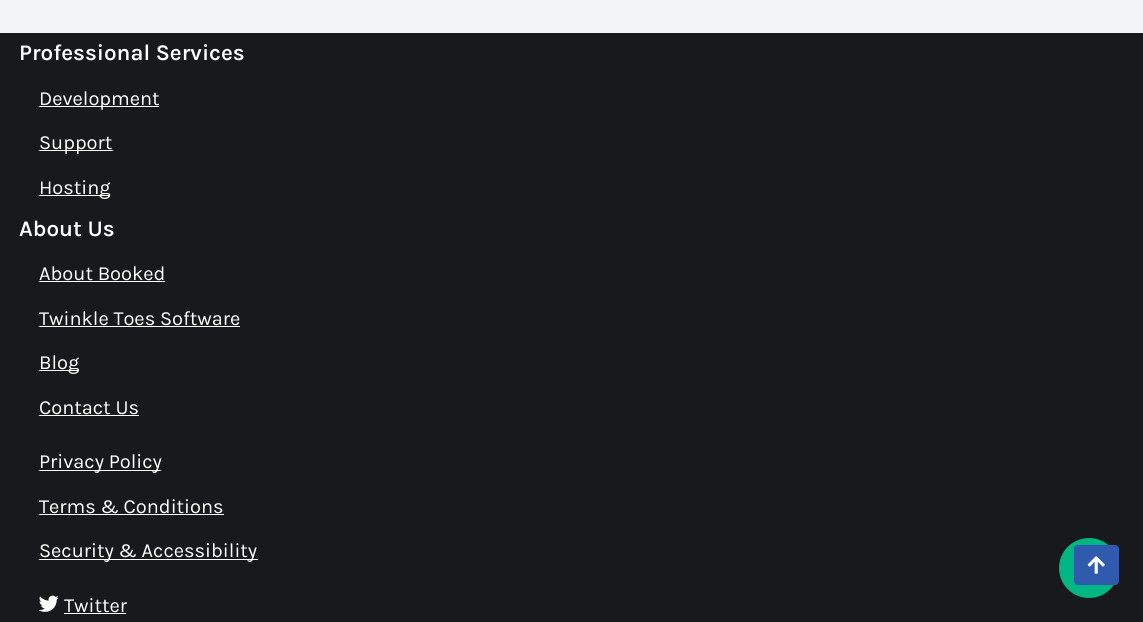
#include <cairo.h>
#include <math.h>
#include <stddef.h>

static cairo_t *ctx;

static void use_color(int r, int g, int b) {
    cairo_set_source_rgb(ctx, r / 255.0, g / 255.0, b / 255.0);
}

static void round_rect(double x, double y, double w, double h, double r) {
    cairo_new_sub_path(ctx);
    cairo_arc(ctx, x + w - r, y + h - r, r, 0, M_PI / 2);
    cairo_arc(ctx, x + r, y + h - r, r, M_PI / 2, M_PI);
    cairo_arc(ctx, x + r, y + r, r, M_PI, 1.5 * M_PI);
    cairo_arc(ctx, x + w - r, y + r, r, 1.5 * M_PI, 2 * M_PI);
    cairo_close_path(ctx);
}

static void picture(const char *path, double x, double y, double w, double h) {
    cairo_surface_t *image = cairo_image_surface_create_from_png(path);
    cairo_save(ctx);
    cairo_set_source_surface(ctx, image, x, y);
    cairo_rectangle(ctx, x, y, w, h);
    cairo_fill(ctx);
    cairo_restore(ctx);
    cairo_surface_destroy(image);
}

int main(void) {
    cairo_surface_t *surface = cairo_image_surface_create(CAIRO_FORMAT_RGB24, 1143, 622);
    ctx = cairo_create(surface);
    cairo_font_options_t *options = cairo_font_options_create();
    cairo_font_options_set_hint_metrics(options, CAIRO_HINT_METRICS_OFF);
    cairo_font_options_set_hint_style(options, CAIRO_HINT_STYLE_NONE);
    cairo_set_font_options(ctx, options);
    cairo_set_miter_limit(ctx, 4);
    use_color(242, 244, 247);
    cairo_paint(ctx);
    use_color(239, 242, 247);
    cairo_rectangle(ctx, 273, 0, 1, 33);
    cairo_fill(ctx);
    use_color(24, 25, 29);
    cairo_rectangle(ctx, 0, 33, 1143, 589);
    cairo_fill(ctx);
    cairo_select_font_face(ctx, "Karla SemiBold", CAIRO_FONT_SLANT_NORMAL, CAIRO_FONT_WEIGHT_NORMAL);
    cairo_set_font_size(ctx, 22.5);
    use_color(255, 255, 255);
    cairo_move_to(ctx, 19, 60);
    cairo_show_text(ctx, "Professional Services");
    cairo_rectangle(ctx, 39, 106, 120, 1);
    cairo_fill(ctx);
    cairo_select_font_face(ctx, "Karla", CAIRO_FONT_SLANT_NORMAL, CAIRO_FONT_WEIGHT_NORMAL);
    cairo_set_font_size(ctx, 20);
    cairo_move_to(ctx, 39, 105);
    cairo_show_text(ctx, "Development");
    cairo_rectangle(ctx, 39, 150, 74, 1);
    cairo_fill(ctx);
    cairo_move_to(ctx, 39, 149);
    cairo_show_text(ctx, "Support");
    cairo_rectangle(ctx, 39, 195, 71, 1);
    cairo_fill(ctx);
    cairo_move_to(ctx, 39, 194);
    cairo_show_text(ctx, "Hosting");
    cairo_select_font_face(ctx, "Karla SemiBold", CAIRO_FONT_SLANT_NORMAL, CAIRO_FONT_WEIGHT_NORMAL);
    cairo_set_font_size(ctx, 22.5);
    cairo_move_to(ctx, 19, 236);
    cairo_show_text(ctx, "About Us");
    cairo_select_font_face(ctx, "Karla", CAIRO_FONT_SLANT_NORMAL, CAIRO_FONT_WEIGHT_NORMAL);
    cairo_set_font_size(ctx, 20);
    cairo_move_to(ctx, 39, 280);
    cairo_show_text(ctx, "About Booked");
    cairo_rectangle(ctx, 39, 281, 126, 1);
    cairo_fill(ctx);
    cairo_move_to(ctx, 39, 325);
    cairo_show_text(ctx, "Twinkle Toes Software");
    cairo_rectangle(ctx, 39, 326, 201, 1);
    cairo_fill(ctx);
    cairo_rectangle(ctx, 39, 370, 40, 1);
    cairo_fill(ctx);
    cairo_move_to(ctx, 39, 369);
    cairo_show_text(ctx, "Blog");
    cairo_move_to(ctx, 39, 414);
    cairo_show_text(ctx, "Contact Us");
    cairo_rectangle(ctx, 39, 415, 100, 1);
    cairo_fill(ctx);
    cairo_rectangle(ctx, 39, 470, 122, 1);
    cairo_fill(ctx);
    cairo_move_to(ctx, 39, 468);
    cairo_show_text(ctx, "Privacy Policy");
    cairo_move_to(ctx, 39, 513);
    cairo_show_text(ctx, "Terms & Conditions");
    cairo_rectangle(ctx, 39, 514, 185, 1);
    cairo_fill(ctx);
    cairo_rectangle(ctx, 39, 559, 219, 1);
    cairo_fill(ctx);
    cairo_move_to(ctx, 39, 557);
    cairo_show_text(ctx, "Security & Accessibility");
    picture("img1.png", 39, 595, 20, 17);
    cairo_move_to(ctx, 64, 612);
    cairo_show_text(ctx, "Twitter");
    cairo_rectangle(ctx, 64, 613, 62, 1);
    cairo_fill(ctx);
    use_color(0, 182, 130);
    cairo_arc(ctx, 1089, 568, 30, 0, 2 * M_PI);
    cairo_fill(ctx);
    picture("img3.png", 1075, 583, 1, 1);
    use_color(47, 90, 174);
    round_rect(1074, 545, 45, 40, 4);
    cairo_fill(ctx);
    picture("img2.png", 1087, 556, 18, 18);
    cairo_surface_write_to_png(surface, "result.png");
    cairo_font_options_destroy(options);
    cairo_destroy(ctx);
    cairo_surface_destroy(surface);
    return 0;
}
